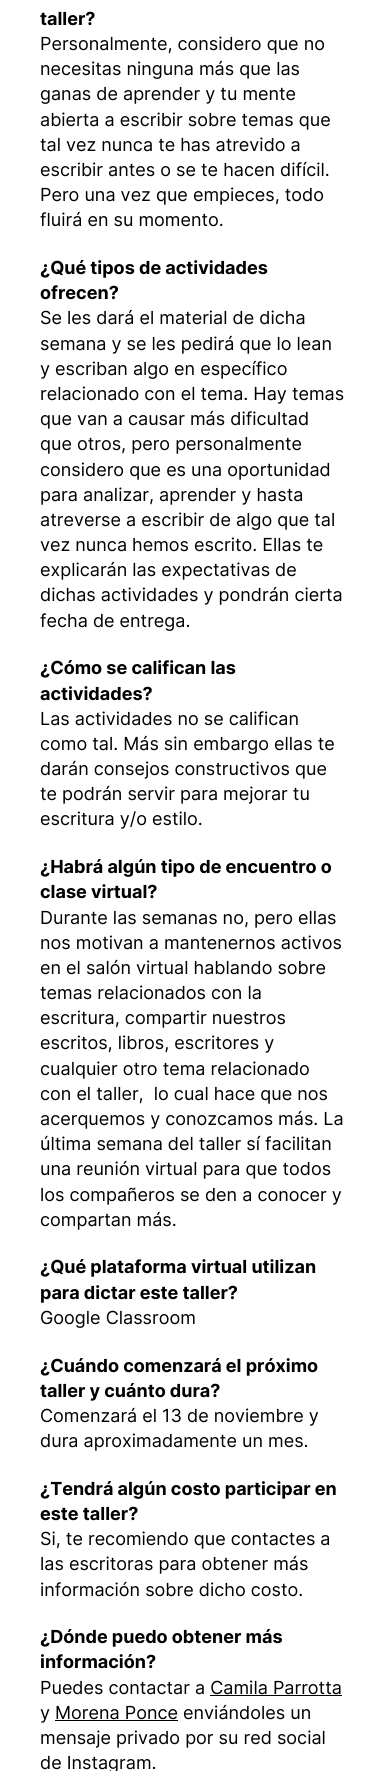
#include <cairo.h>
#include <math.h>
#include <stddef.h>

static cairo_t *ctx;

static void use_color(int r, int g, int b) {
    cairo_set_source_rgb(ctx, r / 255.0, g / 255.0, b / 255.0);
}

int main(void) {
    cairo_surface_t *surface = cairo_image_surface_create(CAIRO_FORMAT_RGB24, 386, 1771);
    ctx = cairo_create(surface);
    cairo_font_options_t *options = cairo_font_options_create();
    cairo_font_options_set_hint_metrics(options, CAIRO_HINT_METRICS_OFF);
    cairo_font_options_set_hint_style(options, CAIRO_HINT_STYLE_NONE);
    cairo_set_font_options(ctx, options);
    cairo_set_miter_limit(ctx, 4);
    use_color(255, 255, 255);
    cairo_paint(ctx);
    cairo_select_font_face(ctx, "Inter", CAIRO_FONT_SLANT_NORMAL, CAIRO_FONT_WEIGHT_BOLD);
    cairo_set_font_size(ctx, 18);
    use_color(0, 0, 0);
    cairo_move_to(ctx, 40, 25);
    cairo_show_text(ctx, "taller?");
    cairo_select_font_face(ctx, "Inter", CAIRO_FONT_SLANT_NORMAL, CAIRO_FONT_WEIGHT_NORMAL);
    cairo_move_to(ctx, 40, 50);
    cairo_show_text(ctx, "Personalmente, considero que no");
    cairo_move_to(ctx, 40, 75);
    cairo_show_text(ctx, "necesitas ninguna más que las");
    cairo_move_to(ctx, 40, 100);
    cairo_show_text(ctx, "ganas de aprender y tu mente");
    cairo_move_to(ctx, 40, 126);
    cairo_show_text(ctx, "abierta a escribir sobre temas que");
    cairo_move_to(ctx, 40, 151);
    cairo_show_text(ctx, "tal vez nunca te has atrevido a");
    cairo_move_to(ctx, 40, 176);
    cairo_show_text(ctx, "escribir antes o se te hacen difícil.");
    cairo_move_to(ctx, 40, 201);
    cairo_show_text(ctx, "Pero una vez que empieces, todo");
    cairo_move_to(ctx, 40, 226);
    cairo_show_text(ctx, "fluirá en su momento.");
    cairo_select_font_face(ctx, "Inter", CAIRO_FONT_SLANT_NORMAL, CAIRO_FONT_WEIGHT_BOLD);
    cairo_move_to(ctx, 40, 274);
    cairo_show_text(ctx, "¿Qué tipos de actividades");
    cairo_move_to(ctx, 40, 299);
    cairo_show_text(ctx, "ofrecen?");
    cairo_select_font_face(ctx, "Inter", CAIRO_FONT_SLANT_NORMAL, CAIRO_FONT_WEIGHT_NORMAL);
    cairo_move_to(ctx, 40, 324);
    cairo_show_text(ctx, "Se les dará el material de dicha");
    cairo_move_to(ctx, 40, 350);
    cairo_show_text(ctx, "semana y se les pedirá que lo lean");
    cairo_move_to(ctx, 40, 375);
    cairo_show_text(ctx, "y escriban algo en específico");
    cairo_move_to(ctx, 40, 400);
    cairo_show_text(ctx, "relacionado con el tema. Hay temas");
    cairo_move_to(ctx, 40, 425);
    cairo_show_text(ctx, "que van a causar más dificultad");
    cairo_move_to(ctx, 40, 450);
    cairo_show_text(ctx, "que otros, pero personalmente");
    cairo_move_to(ctx, 40, 476);
    cairo_show_text(ctx, "considero que es una oportunidad");
    cairo_move_to(ctx, 40, 501);
    cairo_show_text(ctx, "para analizar, aprender y hasta");
    cairo_move_to(ctx, 40, 526);
    cairo_show_text(ctx, "atreverse a escribir de algo que tal");
    cairo_move_to(ctx, 40, 551);
    cairo_show_text(ctx, "vez nunca hemos escrito. Ellas te");
    cairo_move_to(ctx, 40, 576);
    cairo_show_text(ctx, "explicarán las expectativas de");
    cairo_move_to(ctx, 40, 601);
    cairo_show_text(ctx, "dichas actividades y pondrán cierta");
    cairo_move_to(ctx, 40, 627);
    cairo_show_text(ctx, "fecha de entrega.");
    cairo_select_font_face(ctx, "Inter", CAIRO_FONT_SLANT_NORMAL, CAIRO_FONT_WEIGHT_BOLD);
    cairo_move_to(ctx, 40, 674);
    cairo_show_text(ctx, "¿Cómo se califican las");
    cairo_move_to(ctx, 40, 700);
    cairo_show_text(ctx, "actividades?");
    cairo_select_font_face(ctx, "Inter", CAIRO_FONT_SLANT_NORMAL, CAIRO_FONT_WEIGHT_NORMAL);
    cairo_move_to(ctx, 40, 725);
    cairo_show_text(ctx, "Las actividades no se califican");
    cairo_move_to(ctx, 40, 750);
    cairo_show_text(ctx, "como tal. Más sin embargo ellas te");
    cairo_move_to(ctx, 40, 775);
    cairo_show_text(ctx, "darán consejos constructivos que");
    cairo_move_to(ctx, 40, 800);
    cairo_show_text(ctx, "te podrán servir para mejorar tu");
    cairo_move_to(ctx, 40, 825);
    cairo_show_text(ctx, "escritura y/o estilo.");
    cairo_select_font_face(ctx, "Inter", CAIRO_FONT_SLANT_NORMAL, CAIRO_FONT_WEIGHT_BOLD);
    cairo_move_to(ctx, 40, 873);
    cairo_show_text(ctx, "¿Habrá algún tipo de encuentro o");
    cairo_move_to(ctx, 40, 898);
    cairo_show_text(ctx, "clase virtual?");
    cairo_select_font_face(ctx, "Inter", CAIRO_FONT_SLANT_NORMAL, CAIRO_FONT_WEIGHT_NORMAL);
    cairo_move_to(ctx, 40, 924);
    cairo_show_text(ctx, "Durante las semanas no, pero ellas");
    cairo_move_to(ctx, 40, 949);
    cairo_show_text(ctx, "nos motivan a mantenernos activos");
    cairo_move_to(ctx, 40, 974);
    cairo_show_text(ctx, "en el salón virtual hablando sobre");
    cairo_move_to(ctx, 40, 999);
    cairo_show_text(ctx, "temas relacionados con la");
    cairo_move_to(ctx, 40, 1024);
    cairo_show_text(ctx, "escritura, compartir nuestros");
    cairo_move_to(ctx, 40, 1049);
    cairo_show_text(ctx, "escritos, libros, escritores y");
    cairo_move_to(ctx, 40, 1075);
    cairo_show_text(ctx, "cualquier otro tema relacionado");
    cairo_move_to(ctx, 40, 1100);
    cairo_show_text(ctx, "con el taller,  lo cual hace que nos");
    cairo_move_to(ctx, 40, 1125);
    cairo_show_text(ctx, "acerquemos y conozcamos más. La");
    cairo_move_to(ctx, 40, 1150);
    cairo_show_text(ctx, "última semana del taller sí facilitan");
    cairo_move_to(ctx, 40, 1175);
    cairo_show_text(ctx, "una reunión virtual para que todos");
    cairo_move_to(ctx, 40, 1201);
    cairo_show_text(ctx, "los compañeros se den a conocer y");
    cairo_move_to(ctx, 40, 1226);
    cairo_show_text(ctx, "compartan más.");
    cairo_select_font_face(ctx, "Inter", CAIRO_FONT_SLANT_NORMAL, CAIRO_FONT_WEIGHT_BOLD);
    cairo_move_to(ctx, 40, 1273);
    cairo_show_text(ctx, "¿Qué plataforma virtual utilizan");
    cairo_move_to(ctx, 40, 1299);
    cairo_show_text(ctx, "para dictar este taller?");
    cairo_select_font_face(ctx, "Inter", CAIRO_FONT_SLANT_NORMAL, CAIRO_FONT_WEIGHT_NORMAL);
    cairo_move_to(ctx, 40, 1324);
    cairo_show_text(ctx, "Google Classroom");
    cairo_select_font_face(ctx, "Inter", CAIRO_FONT_SLANT_NORMAL, CAIRO_FONT_WEIGHT_BOLD);
    cairo_move_to(ctx, 40, 1372);
    cairo_show_text(ctx, "¿Cuándo comenzará el próximo");
    cairo_move_to(ctx, 40, 1397);
    cairo_show_text(ctx, "taller y cuánto dura?");
    cairo_select_font_face(ctx, "Inter", CAIRO_FONT_SLANT_NORMAL, CAIRO_FONT_WEIGHT_NORMAL);
    cairo_move_to(ctx, 40, 1422);
    cairo_show_text(ctx, "Comenzará el 13 de noviembre y");
    cairo_move_to(ctx, 40, 1447);
    cairo_show_text(ctx, "dura aproximadamente un mes.");
    cairo_select_font_face(ctx, "Inter", CAIRO_FONT_SLANT_NORMAL, CAIRO_FONT_WEIGHT_BOLD);
    cairo_move_to(ctx, 40, 1495);
    cairo_show_text(ctx, "¿Tendrá algún costo participar en");
    cairo_move_to(ctx, 40, 1520);
    cairo_show_text(ctx, "este taller?");
    cairo_select_font_face(ctx, "Inter", CAIRO_FONT_SLANT_NORMAL, CAIRO_FONT_WEIGHT_NORMAL);
    cairo_move_to(ctx, 40, 1545);
    cairo_show_text(ctx, "Si, te recomiendo que contactes a");
    cairo_move_to(ctx, 40, 1570);
    cairo_show_text(ctx, "las escritoras para obtener más");
    cairo_move_to(ctx, 40, 1596);
    cairo_show_text(ctx, "información sobre dicho costo.");
    cairo_select_font_face(ctx, "Inter", CAIRO_FONT_SLANT_NORMAL, CAIRO_FONT_WEIGHT_BOLD);
    cairo_move_to(ctx, 40, 1643);
    cairo_show_text(ctx, "¿Dónde puedo obtener más");
    cairo_move_to(ctx, 40, 1668);
    cairo_show_text(ctx, "información?");
    cairo_select_font_face(ctx, "Inter", CAIRO_FONT_SLANT_NORMAL, CAIRO_FONT_WEIGHT_NORMAL);
    cairo_move_to(ctx, 40, 1694);
    cairo_show_text(ctx, "Puedes contactar a Camila Parrotta");
    cairo_rectangle(ctx, 210, 1695, 132, 1);
    cairo_fill(ctx);
    cairo_move_to(ctx, 40, 1719);
    cairo_show_text(ctx, "y Morena Ponce enviándoles un");
    cairo_rectangle(ctx, 55, 1720, 123, 1);
    cairo_fill(ctx);
    cairo_move_to(ctx, 40, 1744);
    cairo_show_text(ctx, "mensaje privado por su red social");
    cairo_move_to(ctx, 40, 1769);
    cairo_show_text(ctx, "de Instagram.");
    cairo_surface_write_to_png(surface, "result.png");
    cairo_font_options_destroy(options);
    cairo_destroy(ctx);
    cairo_surface_destroy(surface);
    return 0;
}
